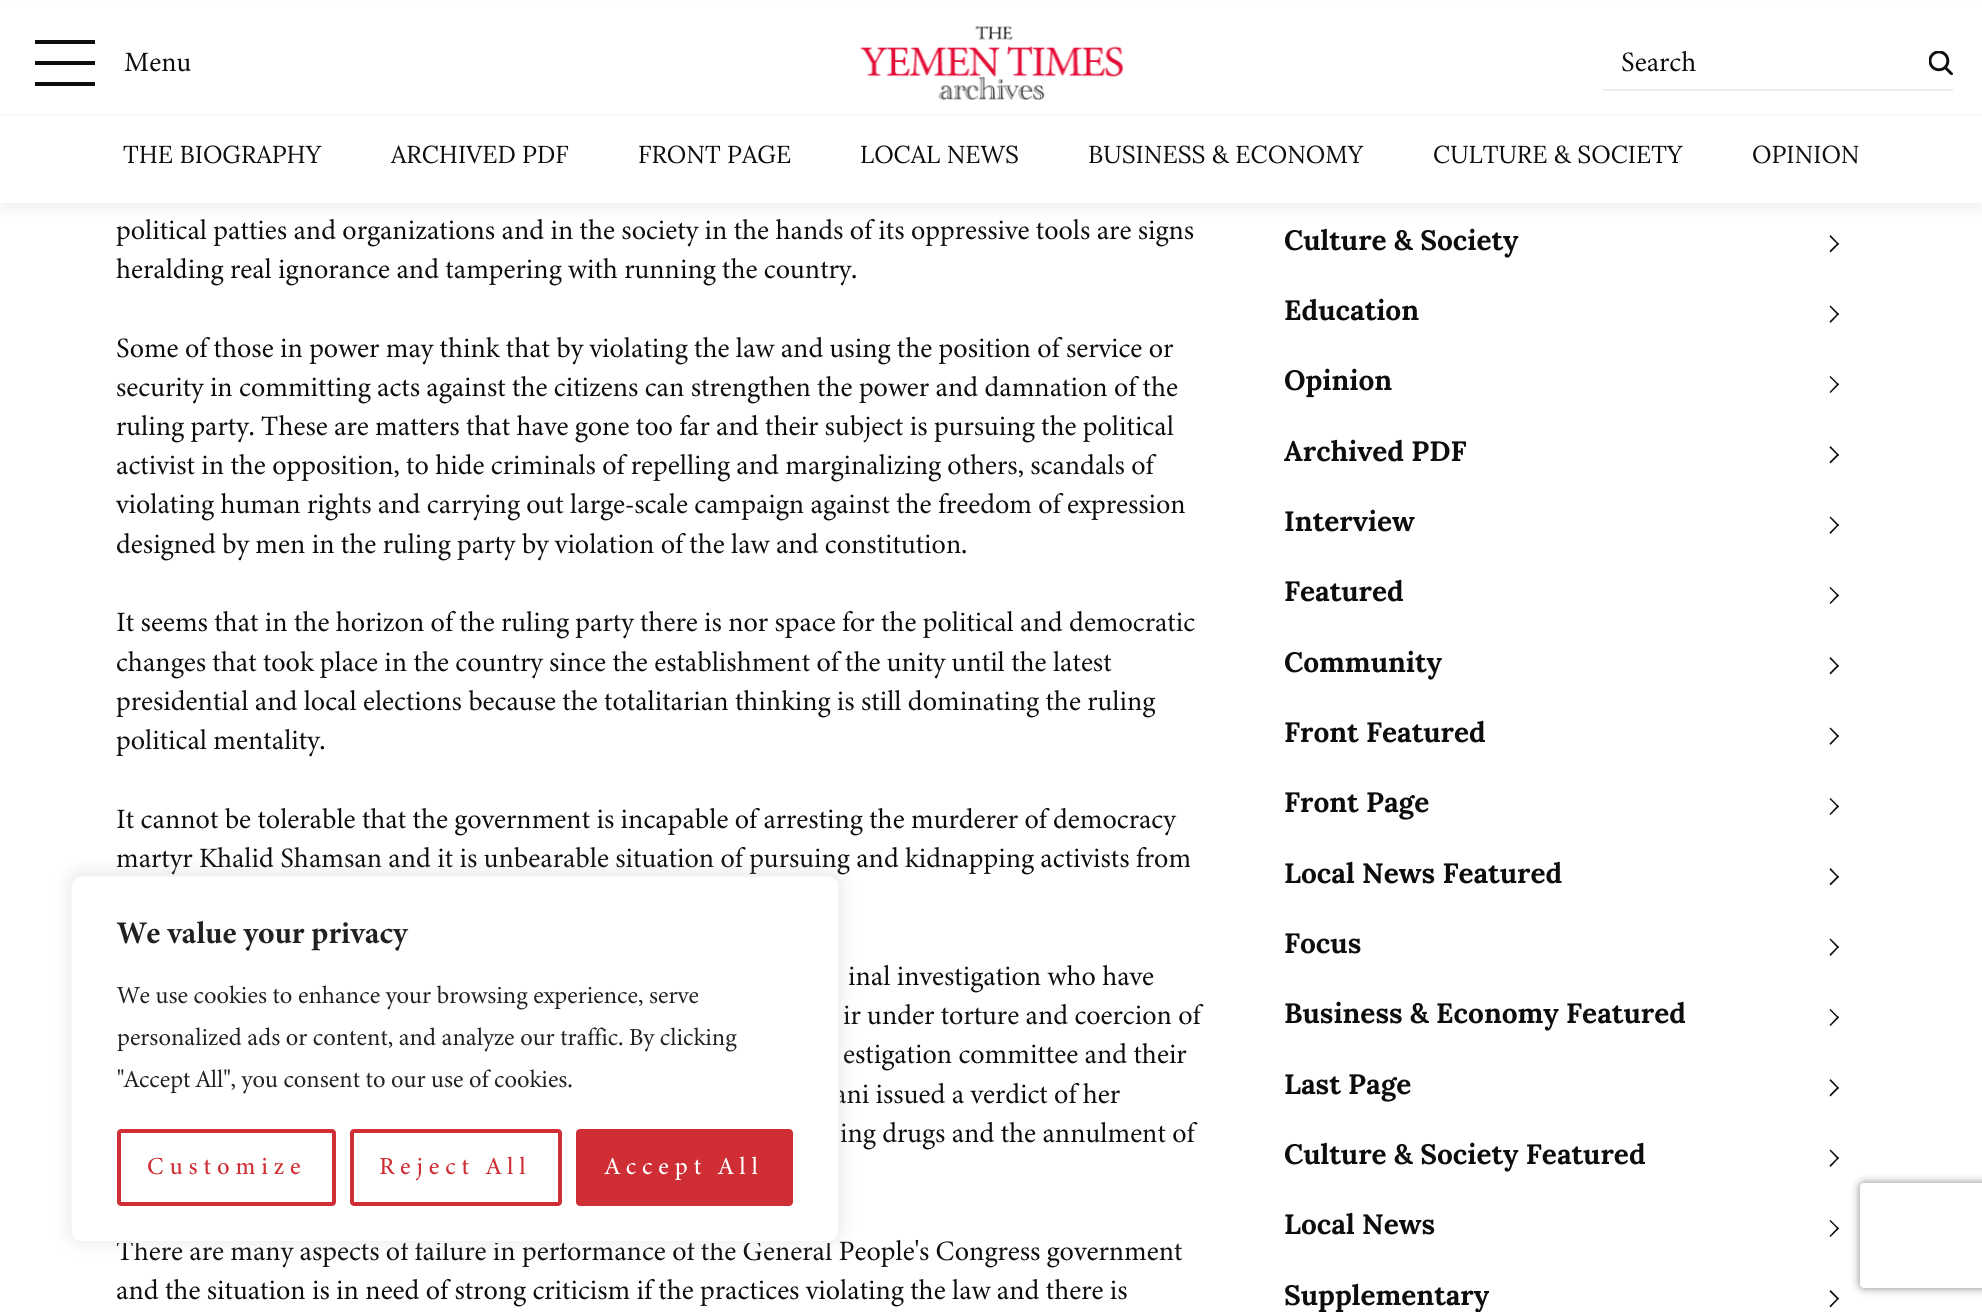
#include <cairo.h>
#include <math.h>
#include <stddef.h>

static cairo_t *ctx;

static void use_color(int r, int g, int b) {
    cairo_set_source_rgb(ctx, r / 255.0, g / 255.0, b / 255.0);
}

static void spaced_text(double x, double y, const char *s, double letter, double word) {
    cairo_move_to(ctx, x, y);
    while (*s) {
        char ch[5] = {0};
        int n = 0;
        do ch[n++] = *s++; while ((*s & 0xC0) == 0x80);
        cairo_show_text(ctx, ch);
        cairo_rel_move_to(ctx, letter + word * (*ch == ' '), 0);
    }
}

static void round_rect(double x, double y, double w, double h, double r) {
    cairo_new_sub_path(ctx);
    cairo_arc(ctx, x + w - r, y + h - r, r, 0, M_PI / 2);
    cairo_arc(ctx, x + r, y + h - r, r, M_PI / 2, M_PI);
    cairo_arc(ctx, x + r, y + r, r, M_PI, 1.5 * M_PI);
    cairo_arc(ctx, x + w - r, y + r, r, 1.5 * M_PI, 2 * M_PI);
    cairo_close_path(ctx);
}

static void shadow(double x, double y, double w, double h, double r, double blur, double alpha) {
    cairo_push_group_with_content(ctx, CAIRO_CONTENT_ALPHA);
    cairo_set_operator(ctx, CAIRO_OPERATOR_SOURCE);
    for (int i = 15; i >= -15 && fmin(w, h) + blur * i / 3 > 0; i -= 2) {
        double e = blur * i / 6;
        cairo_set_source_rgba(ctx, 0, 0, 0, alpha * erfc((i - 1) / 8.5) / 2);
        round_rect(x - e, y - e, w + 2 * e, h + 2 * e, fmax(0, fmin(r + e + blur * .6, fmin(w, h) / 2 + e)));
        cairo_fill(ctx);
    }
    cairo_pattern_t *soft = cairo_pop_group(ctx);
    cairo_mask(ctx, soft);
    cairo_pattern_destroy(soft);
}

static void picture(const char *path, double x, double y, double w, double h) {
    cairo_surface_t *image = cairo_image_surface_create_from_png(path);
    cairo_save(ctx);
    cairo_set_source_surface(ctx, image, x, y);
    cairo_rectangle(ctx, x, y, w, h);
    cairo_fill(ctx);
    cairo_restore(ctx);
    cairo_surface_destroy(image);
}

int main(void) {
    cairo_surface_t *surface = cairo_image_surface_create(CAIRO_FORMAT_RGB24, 1982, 1312);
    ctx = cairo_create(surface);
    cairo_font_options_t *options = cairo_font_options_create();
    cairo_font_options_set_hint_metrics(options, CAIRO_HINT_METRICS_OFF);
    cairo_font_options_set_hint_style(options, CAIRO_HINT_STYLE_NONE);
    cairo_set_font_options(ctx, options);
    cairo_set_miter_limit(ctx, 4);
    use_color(255, 255, 255);
    cairo_paint(ctx);
    use_color(98, 98, 98);
    shadow(0, 9, 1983, 203, 0, 5, 0.08);
    use_color(255, 255, 255);
    cairo_rectangle(ctx, 0, 5, 1982, 198);
    cairo_fill(ctx);
    use_color(13, 13, 13);
    cairo_rectangle(ctx, 35, 40, 60, 4);
    cairo_fill(ctx);
    cairo_rectangle(ctx, 35, 61, 60, 4);
    cairo_fill(ctx);
    cairo_rectangle(ctx, 35, 82, 60, 4);
    cairo_fill(ctx);
    cairo_select_font_face(ctx, "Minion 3", CAIRO_FONT_SLANT_NORMAL, CAIRO_FONT_WEIGHT_NORMAL);
    cairo_set_font_size(ctx, 28);
    cairo_move_to(ctx, 124, 71);
    cairo_show_text(ctx, "Menu");
    picture("img1.png", 860, 26, 264, 74);
    picture("img2.png", 1929, 51, 24, 24);
    use_color(237, 237, 237);
    cairo_rectangle(ctx, 1603, 89, 350, 2);
    cairo_fill(ctx);
    use_color(13, 13, 13);
    cairo_move_to(ctx, 1621, 71);
    cairo_show_text(ctx, "Search");
    use_color(247, 247, 247);
    cairo_rectangle(ctx, 0, 114, 1982, 2);
    cairo_fill(ctx);
    cairo_select_font_face(ctx, "Lora", CAIRO_FONT_SLANT_NORMAL, CAIRO_FONT_WEIGHT_NORMAL);
    cairo_set_font_size(ctx, 24.5);
    use_color(13, 13, 13);
    cairo_move_to(ctx, 123, 163);
    cairo_show_text(ctx, "THE BIOGRAPHY");
    cairo_move_to(ctx, 391, 163);
    cairo_show_text(ctx, "ARCHIVED PDF");
    cairo_move_to(ctx, 638, 163);
    cairo_show_text(ctx, "FRONT PAGE");
    cairo_move_to(ctx, 860, 163);
    cairo_show_text(ctx, "LOCAL NEWS");
    cairo_move_to(ctx, 1088, 163);
    cairo_show_text(ctx, "BUSINESS & ECONOMY");
    cairo_move_to(ctx, 1433, 163);
    cairo_show_text(ctx, "CULTURE & SOCIETY");
    cairo_move_to(ctx, 1752, 163);
    cairo_show_text(ctx, "OPINION");
    cairo_select_font_face(ctx, "Minion 3", CAIRO_FONT_SLANT_NORMAL, CAIRO_FONT_WEIGHT_NORMAL);
    cairo_set_font_size(ctx, 28);
    cairo_move_to(ctx, 116, 239);
    cairo_show_text(ctx, "political patties and organizations and in the society in the hands of its oppressive tools are signs");
    cairo_move_to(ctx, 116, 278);
    cairo_show_text(ctx, "heralding real ignorance and tampering with running the country.");
    cairo_move_to(ctx, 116, 357);
    cairo_show_text(ctx, "Some of those in power may think that by violating the law and using the position of service or");
    cairo_move_to(ctx, 116, 396);
    cairo_show_text(ctx, "security in committing acts against the citizens can strengthen the power and damnation of the");
    cairo_move_to(ctx, 116, 435);
    cairo_show_text(ctx, "ruling party. These are matters that have gone too far and their subject is pursuing the political");
    cairo_move_to(ctx, 116, 474);
    cairo_show_text(ctx, "activist in the opposition, to hide criminals of repelling and marginalizing others, scandals of");
    cairo_move_to(ctx, 116, 513);
    cairo_show_text(ctx, "violating human rights and carrying out large-scale campaign against the freedom of expression");
    cairo_move_to(ctx, 116, 553);
    cairo_show_text(ctx, "designed by men in the ruling party by violation of the law and constitution.");
    cairo_move_to(ctx, 116, 631);
    cairo_show_text(ctx, "It seems that in the horizon of the ruling party there is nor space for the political and democratic");
    cairo_move_to(ctx, 116, 671);
    cairo_show_text(ctx, "changes that took place in the country since the establishment of the unity until the latest");
    cairo_move_to(ctx, 116, 710);
    cairo_show_text(ctx, "presidential and local elections because the totalitarian thinking is still dominating the ruling");
    cairo_move_to(ctx, 116, 749);
    cairo_show_text(ctx, "political mentality.");
    cairo_move_to(ctx, 116, 828);
    cairo_show_text(ctx, "It cannot be tolerable that the government is incapable of arresting the murderer of democracy");
    cairo_move_to(ctx, 116, 867);
    cairo_show_text(ctx, "martyr Khalid Shamsan and it is unbearable situation of pursuing and kidnapping activists from");
    cairo_move_to(ctx, 848, 985);
    cairo_show_text(ctx, "inal investigation who have");
    cairo_move_to(ctx, 843, 1024);
    cairo_show_text(ctx, "ir under torture and coercion of");
    cairo_move_to(ctx, 843, 1063);
    cairo_show_text(ctx, "estigation committee and their");
    cairo_move_to(ctx, 834, 1103);
    cairo_show_text(ctx, "ani issued a verdict of her");
    cairo_move_to(ctx, 840, 1142);
    cairo_show_text(ctx, "ing drugs and the annulment of");
    cairo_move_to(ctx, 116, 1260);
    cairo_show_text(ctx, "There are many aspects of failure in performance of the General People's Congress government");
    cairo_move_to(ctx, 116, 1299);
    cairo_show_text(ctx, "and the situation is in need of strong criticism if the practices violating the law and there is");
    cairo_select_font_face(ctx, "Lora", CAIRO_FONT_SLANT_NORMAL, CAIRO_FONT_WEIGHT_BOLD);
    cairo_move_to(ctx, 1284, 250);
    cairo_show_text(ctx, "Culture & Society");
    cairo_new_path(ctx);
    cairo_move_to(ctx, 1830.5, 235);
    cairo_line_to(ctx, 1839, 244);
    cairo_line_to(ctx, 1838, 245);
    cairo_line_to(ctx, 1829.5, 236.5);
    cairo_close_path(ctx);
    cairo_fill(ctx);
    cairo_new_path(ctx);
    cairo_move_to(ctx, 1838, 242.5);
    cairo_line_to(ctx, 1839, 244);
    cairo_line_to(ctx, 1830.5, 252.5);
    cairo_line_to(ctx, 1829.5, 251);
    cairo_close_path(ctx);
    cairo_fill(ctx);
    cairo_move_to(ctx, 1284, 320);
    cairo_show_text(ctx, "Education");
    cairo_new_path(ctx);
    cairo_move_to(ctx, 1830.5, 305.5);
    cairo_line_to(ctx, 1839, 314);
    cairo_line_to(ctx, 1838, 315.5);
    cairo_line_to(ctx, 1829.5, 306.5);
    cairo_close_path(ctx);
    cairo_fill(ctx);
    cairo_new_path(ctx);
    cairo_move_to(ctx, 1838, 313);
    cairo_line_to(ctx, 1839, 314);
    cairo_line_to(ctx, 1830.5, 323);
    cairo_line_to(ctx, 1829.5, 321.5);
    cairo_close_path(ctx);
    cairo_fill(ctx);
    cairo_move_to(ctx, 1284, 390);
    cairo_show_text(ctx, "Opinion");
    cairo_new_path(ctx);
    cairo_move_to(ctx, 1830.5, 376);
    cairo_line_to(ctx, 1839, 384.5);
    cairo_line_to(ctx, 1838, 385.5);
    cairo_line_to(ctx, 1829.5, 377);
    cairo_close_path(ctx);
    cairo_fill(ctx);
    cairo_new_path(ctx);
    cairo_move_to(ctx, 1838, 383);
    cairo_line_to(ctx, 1839, 384.5);
    cairo_line_to(ctx, 1830.5, 393);
    cairo_line_to(ctx, 1829.5, 392);
    cairo_close_path(ctx);
    cairo_fill(ctx);
    cairo_move_to(ctx, 1284, 461);
    cairo_show_text(ctx, "Archived PDF");
    cairo_new_path(ctx);
    cairo_move_to(ctx, 1830.5, 446);
    cairo_line_to(ctx, 1839, 455);
    cairo_line_to(ctx, 1838, 456);
    cairo_line_to(ctx, 1829.5, 447.5);
    cairo_close_path(ctx);
    cairo_fill(ctx);
    cairo_new_path(ctx);
    cairo_move_to(ctx, 1838, 453.5);
    cairo_line_to(ctx, 1839, 455);
    cairo_line_to(ctx, 1830.5, 463.5);
    cairo_line_to(ctx, 1829.5, 462);
    cairo_close_path(ctx);
    cairo_fill(ctx);
    cairo_move_to(ctx, 1284, 531);
    cairo_show_text(ctx, "Interview");
    cairo_new_path(ctx);
    cairo_move_to(ctx, 1830.5, 516.5);
    cairo_line_to(ctx, 1839, 525);
    cairo_line_to(ctx, 1838, 526.5);
    cairo_line_to(ctx, 1829.5, 517.5);
    cairo_close_path(ctx);
    cairo_fill(ctx);
    cairo_new_path(ctx);
    cairo_move_to(ctx, 1838, 524);
    cairo_line_to(ctx, 1839, 525);
    cairo_line_to(ctx, 1830.5, 534);
    cairo_line_to(ctx, 1829.5, 532.5);
    cairo_close_path(ctx);
    cairo_fill(ctx);
    cairo_move_to(ctx, 1284, 601);
    cairo_show_text(ctx, "Featured");
    cairo_new_path(ctx);
    cairo_move_to(ctx, 1830.5, 587);
    cairo_line_to(ctx, 1839, 595.5);
    cairo_line_to(ctx, 1838, 596.5);
    cairo_line_to(ctx, 1829.5, 588);
    cairo_close_path(ctx);
    cairo_fill(ctx);
    cairo_new_path(ctx);
    cairo_move_to(ctx, 1838, 594);
    cairo_line_to(ctx, 1839, 595.5);
    cairo_line_to(ctx, 1830.5, 604);
    cairo_line_to(ctx, 1829.5, 603);
    cairo_close_path(ctx);
    cairo_fill(ctx);
    cairo_move_to(ctx, 1284, 672);
    cairo_show_text(ctx, "Community");
    cairo_new_path(ctx);
    cairo_move_to(ctx, 1830.5, 657);
    cairo_line_to(ctx, 1839, 666);
    cairo_line_to(ctx, 1838, 667);
    cairo_line_to(ctx, 1829.5, 658.5);
    cairo_close_path(ctx);
    cairo_fill(ctx);
    cairo_new_path(ctx);
    cairo_move_to(ctx, 1838, 664.5);
    cairo_line_to(ctx, 1839, 666);
    cairo_line_to(ctx, 1830.5, 674.5);
    cairo_line_to(ctx, 1829.5, 673);
    cairo_close_path(ctx);
    cairo_fill(ctx);
    cairo_move_to(ctx, 1284, 742);
    cairo_show_text(ctx, "Front Featured");
    cairo_new_path(ctx);
    cairo_move_to(ctx, 1830.5, 727.5);
    cairo_line_to(ctx, 1839, 736);
    cairo_line_to(ctx, 1838, 737.5);
    cairo_line_to(ctx, 1829.5, 728.5);
    cairo_close_path(ctx);
    cairo_fill(ctx);
    cairo_new_path(ctx);
    cairo_move_to(ctx, 1838, 735);
    cairo_line_to(ctx, 1839, 736);
    cairo_line_to(ctx, 1830.5, 745);
    cairo_line_to(ctx, 1829.5, 743.5);
    cairo_close_path(ctx);
    cairo_fill(ctx);
    cairo_move_to(ctx, 1284, 812);
    cairo_show_text(ctx, "Front Page");
    cairo_new_path(ctx);
    cairo_move_to(ctx, 1830.5, 798);
    cairo_line_to(ctx, 1839, 806.5);
    cairo_line_to(ctx, 1838, 807.5);
    cairo_line_to(ctx, 1829.5, 799);
    cairo_close_path(ctx);
    cairo_fill(ctx);
    cairo_new_path(ctx);
    cairo_move_to(ctx, 1838, 805);
    cairo_line_to(ctx, 1839, 806.5);
    cairo_line_to(ctx, 1830.5, 815);
    cairo_line_to(ctx, 1829.5, 814);
    cairo_close_path(ctx);
    cairo_fill(ctx);
    cairo_move_to(ctx, 1284, 883);
    cairo_show_text(ctx, "Local News Featured");
    cairo_new_path(ctx);
    cairo_move_to(ctx, 1830.5, 868);
    cairo_line_to(ctx, 1839, 877);
    cairo_line_to(ctx, 1838, 878);
    cairo_line_to(ctx, 1829.5, 869.5);
    cairo_close_path(ctx);
    cairo_fill(ctx);
    cairo_new_path(ctx);
    cairo_move_to(ctx, 1838, 875.5);
    cairo_line_to(ctx, 1839, 877);
    cairo_line_to(ctx, 1830.5, 885.5);
    cairo_line_to(ctx, 1829.5, 884);
    cairo_close_path(ctx);
    cairo_fill(ctx);
    cairo_move_to(ctx, 1284, 953);
    cairo_show_text(ctx, "Focus");
    cairo_new_path(ctx);
    cairo_move_to(ctx, 1830.5, 938.5);
    cairo_line_to(ctx, 1839, 947);
    cairo_line_to(ctx, 1838, 948.5);
    cairo_line_to(ctx, 1829.5, 939.5);
    cairo_close_path(ctx);
    cairo_fill(ctx);
    cairo_new_path(ctx);
    cairo_move_to(ctx, 1838, 946);
    cairo_line_to(ctx, 1839, 947);
    cairo_line_to(ctx, 1830.5, 956);
    cairo_line_to(ctx, 1829.5, 954.5);
    cairo_close_path(ctx);
    cairo_fill(ctx);
    cairo_move_to(ctx, 1284, 1023);
    cairo_show_text(ctx, "Business & Economy Featured");
    cairo_new_path(ctx);
    cairo_move_to(ctx, 1830.5, 1009);
    cairo_line_to(ctx, 1839, 1017.5);
    cairo_line_to(ctx, 1838, 1018.5);
    cairo_line_to(ctx, 1829.5, 1010);
    cairo_close_path(ctx);
    cairo_fill(ctx);
    cairo_new_path(ctx);
    cairo_move_to(ctx, 1838, 1016);
    cairo_line_to(ctx, 1839, 1017.5);
    cairo_line_to(ctx, 1830.5, 1026);
    cairo_line_to(ctx, 1829.5, 1025);
    cairo_close_path(ctx);
    cairo_fill(ctx);
    cairo_move_to(ctx, 1284, 1094);
    cairo_show_text(ctx, "Last Page");
    cairo_new_path(ctx);
    cairo_move_to(ctx, 1830.5, 1079);
    cairo_line_to(ctx, 1839, 1088);
    cairo_line_to(ctx, 1838, 1089);
    cairo_line_to(ctx, 1829.5, 1080.5);
    cairo_close_path(ctx);
    cairo_fill(ctx);
    cairo_new_path(ctx);
    cairo_move_to(ctx, 1838, 1086.5);
    cairo_line_to(ctx, 1839, 1088);
    cairo_line_to(ctx, 1830.5, 1096.5);
    cairo_line_to(ctx, 1829.5, 1095);
    cairo_close_path(ctx);
    cairo_fill(ctx);
    cairo_move_to(ctx, 1284, 1164);
    cairo_show_text(ctx, "Culture & Society Featured");
    cairo_new_path(ctx);
    cairo_move_to(ctx, 1830.5, 1149.5);
    cairo_line_to(ctx, 1839, 1158);
    cairo_line_to(ctx, 1838, 1159.5);
    cairo_line_to(ctx, 1829.5, 1150.5);
    cairo_close_path(ctx);
    cairo_fill(ctx);
    cairo_new_path(ctx);
    cairo_move_to(ctx, 1838, 1157);
    cairo_line_to(ctx, 1839, 1158);
    cairo_line_to(ctx, 1830.5, 1167);
    cairo_line_to(ctx, 1829.5, 1165.5);
    cairo_close_path(ctx);
    cairo_fill(ctx);
    cairo_move_to(ctx, 1284, 1234);
    cairo_show_text(ctx, "Local News");
    cairo_new_path(ctx);
    cairo_move_to(ctx, 1830.5, 1220);
    cairo_line_to(ctx, 1839, 1228.5);
    cairo_line_to(ctx, 1838, 1229.5);
    cairo_line_to(ctx, 1829.5, 1221);
    cairo_close_path(ctx);
    cairo_fill(ctx);
    cairo_new_path(ctx);
    cairo_move_to(ctx, 1838, 1227);
    cairo_line_to(ctx, 1839, 1228.5);
    cairo_line_to(ctx, 1830.5, 1237);
    cairo_line_to(ctx, 1829.5, 1236);
    cairo_close_path(ctx);
    cairo_fill(ctx);
    cairo_move_to(ctx, 1284, 1305);
    cairo_show_text(ctx, "Supplementary");
    cairo_new_path(ctx);
    cairo_move_to(ctx, 1830.5, 1290);
    cairo_line_to(ctx, 1839, 1298.5);
    cairo_line_to(ctx, 1838, 1300);
    cairo_line_to(ctx, 1829.5, 1291.5);
    cairo_close_path(ctx);
    cairo_fill(ctx);
    cairo_new_path(ctx);
    cairo_move_to(ctx, 1838, 1297.5);
    cairo_line_to(ctx, 1839, 1298.5);
    cairo_line_to(ctx, 1830.5, 1307.5);
    cairo_line_to(ctx, 1829.5, 1306);
    cairo_close_path(ctx);
    cairo_fill(ctx);
    use_color(172, 171, 171);
    shadow(70, 873, 770, 368, 11, 9, 0.3);
    use_color(255, 255, 255);
    round_rect(71, 876, 768, 366, 10);
    cairo_fill_preserve(ctx);
    use_color(244, 244, 244);
    cairo_stroke(ctx);
    cairo_select_font_face(ctx, "Minion 3", CAIRO_FONT_SLANT_NORMAL, CAIRO_FONT_WEIGHT_BOLD);
    cairo_set_font_size(ctx, 31.5);
    use_color(33, 33, 33);
    cairo_move_to(ctx, 117, 943);
    cairo_show_text(ctx, "We value your privacy");
    cairo_select_font_face(ctx, "Minion 3", CAIRO_FONT_SLANT_NORMAL, CAIRO_FONT_WEIGHT_NORMAL);
    cairo_set_font_size(ctx, 24.5);
    cairo_move_to(ctx, 117, 1003);
    cairo_show_text(ctx, "We use cookies to enhance your browsing experience, serve");
    cairo_move_to(ctx, 117, 1045);
    cairo_show_text(ctx, "personalized ads or content, and analyze our traffic. By clicking");
    cairo_move_to(ctx, 117, 1087);
    cairo_show_text(ctx, "\"Accept All\", you consent to our use of cookies.");
    round_rect(119, 1131, 215, 73, 2);
    use_color(207, 46, 52);
    cairo_set_line_width(ctx, 4);
    cairo_stroke(ctx);
    cairo_select_font_face(ctx, "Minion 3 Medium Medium", CAIRO_FONT_SLANT_NORMAL, CAIRO_FONT_WEIGHT_NORMAL);
    spaced_text(147, 1174, "Customize", 5.9, 0);
    round_rect(352, 1131, 208, 73, 2);
    cairo_stroke(ctx);
    spaced_text(379, 1174, "Reject All", 5.9, 0);
    round_rect(578, 1131, 213, 73, 2);
    cairo_fill_preserve(ctx);
    cairo_stroke(ctx);
    use_color(255, 255, 255);
    spaced_text(605, 1174, "Accept All", 5.9, 0);
    cairo_save(ctx);
    cairo_set_fill_rule(ctx, CAIRO_FILL_RULE_EVEN_ODD);
    cairo_new_path(ctx);
    cairo_move_to(ctx, 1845, 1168);
    cairo_line_to(ctx, 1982, 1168);
    cairo_line_to(ctx, 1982, 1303);
    cairo_line_to(ctx, 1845, 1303);
    cairo_close_path(ctx);
    cairo_move_to(ctx, 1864, 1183);
    cairo_line_to(ctx, 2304, 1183);
    cairo_curve_to(ctx, 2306, 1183, 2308, 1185, 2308, 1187);
    cairo_line_to(ctx, 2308, 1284);
    cairo_curve_to(ctx, 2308, 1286, 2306, 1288, 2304, 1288);
    cairo_line_to(ctx, 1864, 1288);
    cairo_curve_to(ctx, 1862, 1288, 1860, 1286, 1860, 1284);
    cairo_line_to(ctx, 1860, 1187);
    cairo_curve_to(ctx, 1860, 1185, 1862, 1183, 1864, 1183);
    cairo_close_path(ctx);
    cairo_clip(ctx);
    use_color(134, 134, 134);
    shadow(1860, 1183, 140, 105, 4, 4.5, 1);
    cairo_restore(ctx);
    cairo_surface_write_to_png(surface, "result.png");
    cairo_font_options_destroy(options);
    cairo_destroy(ctx);
    cairo_surface_destroy(surface);
    return 0;
}
